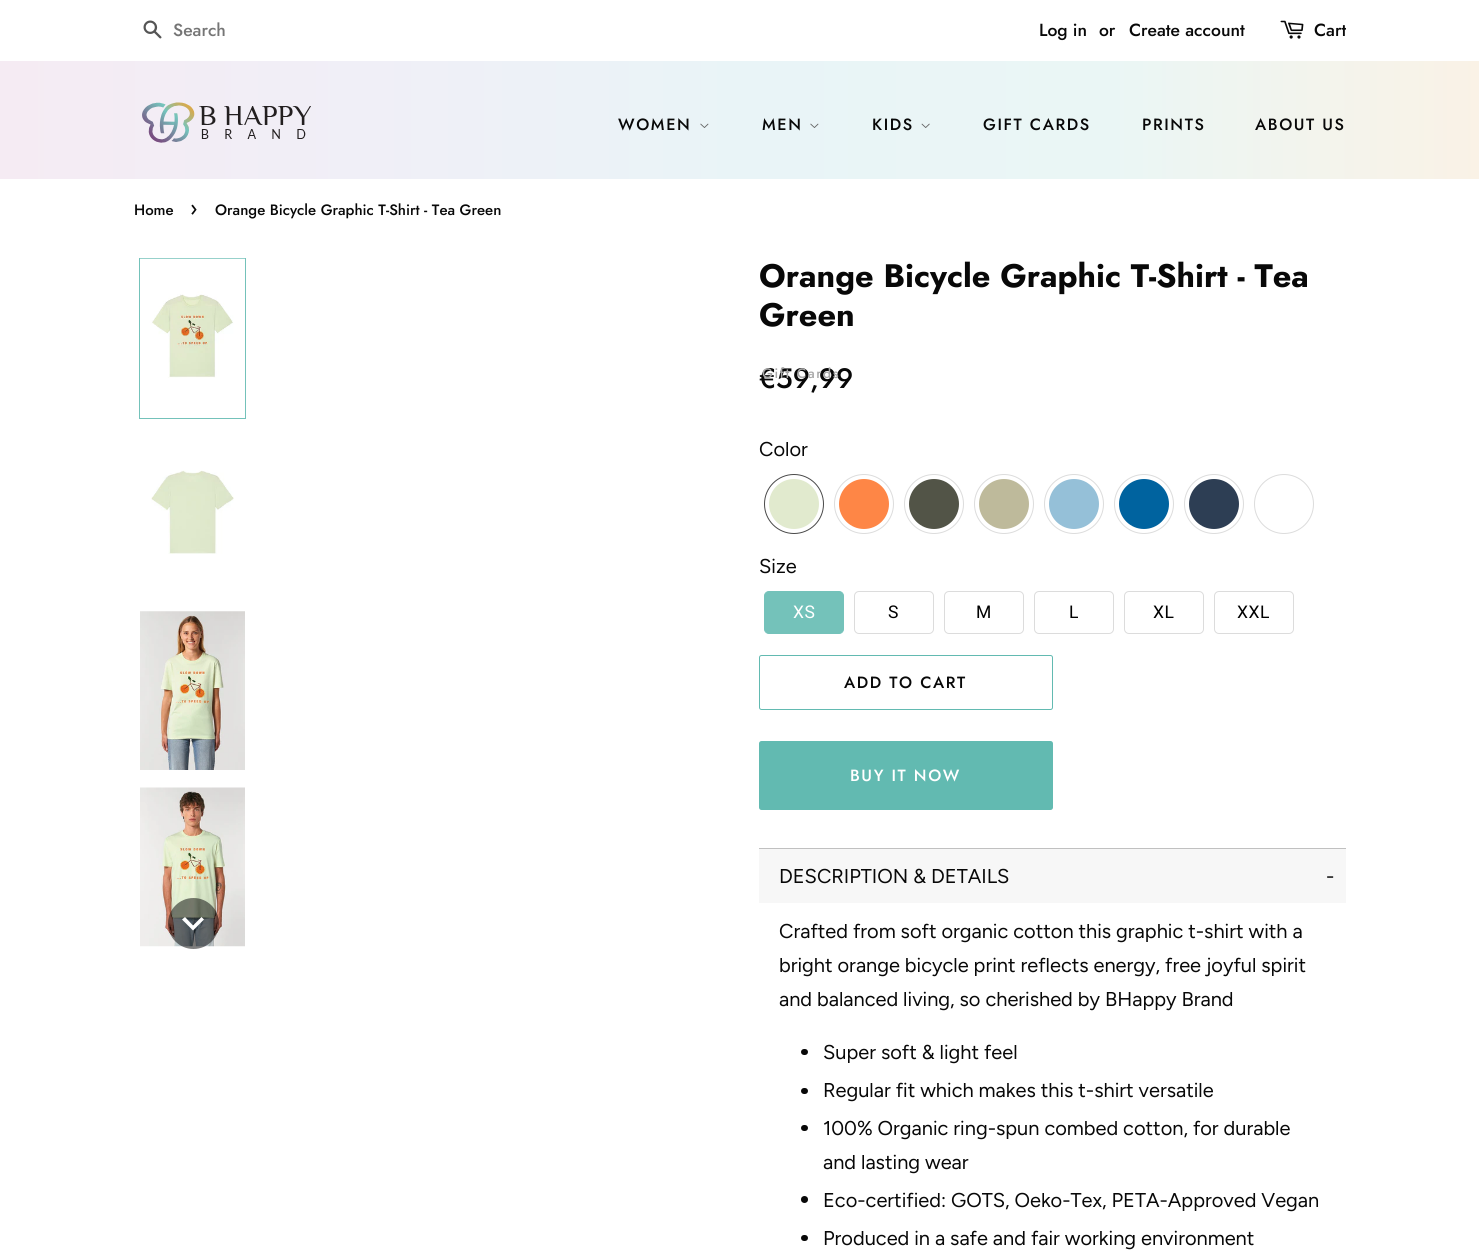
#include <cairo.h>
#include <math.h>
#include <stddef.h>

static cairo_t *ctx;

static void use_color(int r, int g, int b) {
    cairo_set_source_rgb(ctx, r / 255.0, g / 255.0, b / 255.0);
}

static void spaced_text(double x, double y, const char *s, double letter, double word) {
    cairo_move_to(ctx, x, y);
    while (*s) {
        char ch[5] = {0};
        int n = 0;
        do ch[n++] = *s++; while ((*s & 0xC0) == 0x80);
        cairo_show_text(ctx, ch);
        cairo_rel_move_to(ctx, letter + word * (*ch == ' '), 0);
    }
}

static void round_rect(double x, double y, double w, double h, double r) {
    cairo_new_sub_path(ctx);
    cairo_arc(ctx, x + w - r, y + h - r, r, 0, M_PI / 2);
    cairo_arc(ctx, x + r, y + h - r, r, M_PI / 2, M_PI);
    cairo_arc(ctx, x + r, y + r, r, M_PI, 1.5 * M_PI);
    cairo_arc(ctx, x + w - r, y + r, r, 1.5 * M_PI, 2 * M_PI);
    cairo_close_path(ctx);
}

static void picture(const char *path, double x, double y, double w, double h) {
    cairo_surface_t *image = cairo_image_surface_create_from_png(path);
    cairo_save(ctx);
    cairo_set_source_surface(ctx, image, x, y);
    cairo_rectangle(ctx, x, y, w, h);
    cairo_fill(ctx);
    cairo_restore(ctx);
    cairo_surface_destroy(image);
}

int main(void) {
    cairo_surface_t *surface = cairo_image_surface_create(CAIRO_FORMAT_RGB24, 1479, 1257);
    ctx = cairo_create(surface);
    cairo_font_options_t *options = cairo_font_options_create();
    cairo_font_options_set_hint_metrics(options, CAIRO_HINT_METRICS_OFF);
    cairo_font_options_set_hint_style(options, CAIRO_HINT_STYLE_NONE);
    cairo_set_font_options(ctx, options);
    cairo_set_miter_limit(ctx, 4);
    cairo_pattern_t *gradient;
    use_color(255, 255, 255);
    cairo_paint(ctx);
    picture("img1.png", 143, 20, 19, 19);
    cairo_select_font_face(ctx, "Jost Medium", CAIRO_FONT_SLANT_NORMAL, CAIRO_FONT_WEIGHT_NORMAL);
    cairo_set_font_size(ctx, 17.5);
    use_color(117, 117, 117);
    cairo_move_to(ctx, 173, 36);
    cairo_show_text(ctx, "Search");
    use_color(8, 8, 8);
    cairo_move_to(ctx, 1039, 36);
    cairo_show_text(ctx, "Log in");
    cairo_move_to(ctx, 1099, 36);
    cairo_show_text(ctx, "or");
    cairo_move_to(ctx, 1129, 36);
    cairo_show_text(ctx, "Create account");
    picture("img2.png", 1280, 20, 24, 19);
    cairo_move_to(ctx, 1314, 36);
    cairo_show_text(ctx, "Cart");
    gradient = cairo_pattern_create_linear(0, 120, 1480, 120);
    cairo_pattern_add_color_stop_rgba(gradient, 0, 0.961, 0.922, 0.953, 1);
    cairo_pattern_add_color_stop_rgba(gradient, 0.25, 0.941, 0.937, 0.969, 1);
    cairo_pattern_add_color_stop_rgba(gradient, 0.5, 0.914, 0.957, 0.969, 1);
    cairo_pattern_add_color_stop_rgba(gradient, 0.75, 0.918, 0.965, 0.961, 1);
    cairo_pattern_add_color_stop_rgba(gradient, 1, 0.98, 0.949, 0.902, 1);
    cairo_set_source(ctx, gradient);
    cairo_pattern_destroy(gradient);
    cairo_rectangle(ctx, 0, 61, 1479, 118);
    cairo_fill(ctx);
    picture("img3.png", 142, 102, 169, 41);
    cairo_set_font_size(ctx, 16.25);
    use_color(8, 8, 8);
    spaced_text(618, 130, "WOMEN", 1.6, 0);
    picture("img4.png", 700, 123, 9, 5);
    spaced_text(762, 130, "MEN", 1.6, 0);
    picture("img5.png", 810, 123, 9, 5);
    cairo_set_font_size(ctx, 28);
    cairo_move_to(ctx, 759, 388);
    cairo_show_text(ctx, "€59,99");
    cairo_set_font_size(ctx, 13.75);
    use_color(167, 167, 167);
    spaced_text(762, 378, "Gift Cards", 1.6, 0);
    cairo_set_font_size(ctx, 16.25);
    use_color(8, 8, 8);
    spaced_text(872, 130, "KIDS", 1.6, 0);
    picture("img6.png", 921, 123, 9, 5);
    spaced_text(983, 130, "GIFT CARDS", 1.6, 0);
    spaced_text(1142, 130, "PRINTS", 1.6, 0);
    spaced_text(1255, 130, "ABOUT US", 1.6, 0);
    cairo_set_font_size(ctx, 15);
    cairo_move_to(ctx, 134, 215);
    cairo_show_text(ctx, "Home");
    cairo_set_font_size(ctx, 21);
    cairo_move_to(ctx, 190, 215);
    cairo_show_text(ctx, "›");
    cairo_set_font_size(ctx, 15);
    cairo_move_to(ctx, 215, 215);
    cairo_show_text(ctx, "Orange Bicycle Graphic T-Shirt - Tea Green");
    cairo_rectangle(ctx, 139.5, 258.5, 106, 160);
    use_color(116, 194, 186);
    cairo_set_line_width(ctx, 1);
    cairo_stroke(ctx);
    picture("img7.png", 140, 258, 105, 120);
    picture("img8.png", 151, 470, 83, 84);
    picture("img9.png", 140, 611, 105, 159);
    picture("img10.png", 140, 787, 105, 160);
    cairo_set_source_rgba(ctx, 0, 0, 0, 0.5);
    cairo_arc(ctx, 193.5, 923.5, 25.5, 0, 2 * M_PI);
    cairo_fill(ctx);
    use_color(255, 255, 255);
    cairo_new_path(ctx);
    cairo_move_to(ctx, 185, 917);
    cairo_line_to(ctx, 193, 925.5);
    cairo_line_to(ctx, 201.5, 917);
    cairo_line_to(ctx, 204, 919.5);
    cairo_line_to(ctx, 193, 930.5);
    cairo_line_to(ctx, 182, 919.5);
    cairo_close_path(ctx);
    cairo_fill(ctx);
    cairo_select_font_face(ctx, "Jost", CAIRO_FONT_SLANT_NORMAL, CAIRO_FONT_WEIGHT_BOLD);
    cairo_set_font_size(ctx, 32.5);
    use_color(8, 8, 8);
    cairo_move_to(ctx, 759, 287);
    cairo_show_text(ctx, "Orange Bicycle Graphic T-Shirt - Tea");
    cairo_move_to(ctx, 759, 326);
    cairo_show_text(ctx, "Green");
    cairo_select_font_face(ctx, "Figtree", CAIRO_FONT_SLANT_NORMAL, CAIRO_FONT_WEIGHT_NORMAL);
    cairo_set_font_size(ctx, 20);
    cairo_move_to(ctx, 759, 456);
    cairo_show_text(ctx, "Color");
    use_color(225, 234, 206);
    cairo_new_path(ctx);
    cairo_arc(ctx, 794, 504, 28.5, 0, 2 * M_PI);
    cairo_fill_preserve(ctx);
    use_color(74, 74, 74);
    cairo_set_line_width(ctx, 3);
    cairo_stroke(ctx);
    cairo_arc(ctx, 794, 504, 27, 0, 2 * M_PI);
    use_color(255, 255, 255);
    cairo_set_line_width(ctx, 4);
    cairo_stroke(ctx);
    use_color(254, 134, 70);
    cairo_arc(ctx, 864, 504, 28.5, 0, 2 * M_PI);
    cairo_fill_preserve(ctx);
    use_color(220, 220, 220);
    cairo_set_line_width(ctx, 3);
    cairo_stroke(ctx);
    cairo_arc(ctx, 864, 504, 27, 0, 2 * M_PI);
    use_color(255, 255, 255);
    cairo_set_line_width(ctx, 4);
    cairo_stroke(ctx);
    use_color(82, 84, 71);
    cairo_arc(ctx, 934, 504, 28.5, 0, 2 * M_PI);
    cairo_fill_preserve(ctx);
    use_color(220, 220, 220);
    cairo_set_line_width(ctx, 3);
    cairo_stroke(ctx);
    cairo_arc(ctx, 934, 504, 27, 0, 2 * M_PI);
    use_color(255, 255, 255);
    cairo_set_line_width(ctx, 4);
    cairo_stroke(ctx);
    use_color(190, 186, 155);
    cairo_arc(ctx, 1004, 504, 28.5, 0, 2 * M_PI);
    cairo_fill_preserve(ctx);
    use_color(220, 220, 220);
    cairo_set_line_width(ctx, 3);
    cairo_stroke(ctx);
    cairo_arc(ctx, 1004, 504, 27, 0, 2 * M_PI);
    use_color(255, 255, 255);
    cairo_set_line_width(ctx, 4);
    cairo_stroke(ctx);
    use_color(149, 192, 216);
    cairo_arc(ctx, 1074, 504, 28.5, 0, 2 * M_PI);
    cairo_fill_preserve(ctx);
    use_color(220, 220, 220);
    cairo_set_line_width(ctx, 3);
    cairo_stroke(ctx);
    cairo_arc(ctx, 1074, 504, 27, 0, 2 * M_PI);
    use_color(255, 255, 255);
    cairo_set_line_width(ctx, 4);
    cairo_stroke(ctx);
    use_color(0, 99, 159);
    cairo_arc(ctx, 1144, 504, 28.5, 0, 2 * M_PI);
    cairo_fill_preserve(ctx);
    use_color(220, 220, 220);
    cairo_set_line_width(ctx, 3);
    cairo_stroke(ctx);
    cairo_arc(ctx, 1144, 504, 27, 0, 2 * M_PI);
    use_color(255, 255, 255);
    cairo_set_line_width(ctx, 4);
    cairo_stroke(ctx);
    use_color(45, 62, 84);
    cairo_arc(ctx, 1214, 504, 28.5, 0, 2 * M_PI);
    cairo_fill_preserve(ctx);
    use_color(220, 220, 220);
    cairo_set_line_width(ctx, 3);
    cairo_stroke(ctx);
    cairo_arc(ctx, 1214, 504, 27, 0, 2 * M_PI);
    use_color(255, 255, 255);
    cairo_set_line_width(ctx, 4);
    cairo_stroke(ctx);
    cairo_arc(ctx, 1284, 504, 28.5, 0, 2 * M_PI);
    use_color(220, 220, 220);
    cairo_set_line_width(ctx, 3);
    cairo_stroke(ctx);
    cairo_arc(ctx, 1284, 504, 27, 0, 2 * M_PI);
    use_color(255, 255, 255);
    cairo_set_line_width(ctx, 4);
    cairo_stroke(ctx);
    use_color(8, 8, 8);
    cairo_move_to(ctx, 759, 573);
    cairo_show_text(ctx, "Size");
    use_color(116, 194, 186);
    round_rect(764.5, 591.5, 79, 42, 4.5);
    cairo_fill_preserve(ctx);
    cairo_set_line_width(ctx, 1);
    cairo_stroke(ctx);
    cairo_select_font_face(ctx, "Roboto", CAIRO_FONT_SLANT_NORMAL, CAIRO_FONT_WEIGHT_NORMAL);
    cairo_set_font_size(ctx, 17.5);
    use_color(255, 255, 255);
    spaced_text(793, 618, "XS", 0.5, 0);
    round_rect(854.5, 591.5, 79, 42, 4.5);
    use_color(220, 220, 220);
    cairo_stroke(ctx);
    use_color(0, 0, 0);
    spaced_text(888, 618, "S", 0.5, 0);
    round_rect(944.5, 591.5, 79, 42, 4.5);
    use_color(220, 220, 220);
    cairo_stroke(ctx);
    use_color(0, 0, 0);
    spaced_text(976, 618, "M", 0.5, 0);
    round_rect(1034.5, 591.5, 79, 42, 4.5);
    use_color(220, 220, 220);
    cairo_stroke(ctx);
    use_color(0, 0, 0);
    spaced_text(1069, 618, "L", 0.5, 0);
    round_rect(1124.5, 591.5, 79, 42, 4.5);
    use_color(220, 220, 220);
    cairo_stroke(ctx);
    use_color(0, 0, 0);
    spaced_text(1153, 618, "XL", 0.5, 0);
    round_rect(1214.5, 591.5, 79, 42, 4.5);
    use_color(220, 220, 220);
    cairo_stroke(ctx);
    use_color(0, 0, 0);
    spaced_text(1237, 618, "XXL", 0.5, 0);
    round_rect(759.5, 655.5, 293, 54, 2);
    use_color(98, 186, 177);
    cairo_stroke(ctx);
    cairo_select_font_face(ctx, "Jost Medium", CAIRO_FONT_SLANT_NORMAL, CAIRO_FONT_WEIGHT_NORMAL);
    cairo_set_font_size(ctx, 16.25);
    use_color(8, 8, 8);
    spaced_text(844, 688, "ADD TO CART", 1.6, 0);
    use_color(98, 186, 177);
    round_rect(759, 741, 294, 69, 2.5);
    cairo_fill(ctx);
    use_color(255, 255, 255);
    spaced_text(850, 781, "BUY IT NOW", 1.6, 0);
    use_color(247, 247, 247);
    cairo_rectangle(ctx, 759, 849, 587, 54);
    cairo_fill(ctx);
    use_color(192, 192, 192);
    cairo_rectangle(ctx, 759, 848, 587, 1);
    cairo_fill(ctx);
    cairo_select_font_face(ctx, "Figtree", CAIRO_FONT_SLANT_NORMAL, CAIRO_FONT_WEIGHT_NORMAL);
    cairo_set_font_size(ctx, 20);
    use_color(8, 8, 8);
    cairo_move_to(ctx, 779, 883);
    cairo_show_text(ctx, "DESCRIPTION & DETAILS");
    cairo_move_to(ctx, 1326, 883);
    cairo_show_text(ctx, "-");
    cairo_move_to(ctx, 779, 938);
    cairo_show_text(ctx, "Crafted from soft organic cotton this graphic t-shirt with a");
    cairo_move_to(ctx, 779, 972);
    cairo_show_text(ctx, "bright orange bicycle print reflects energy, free joyful spirit");
    cairo_move_to(ctx, 779, 1006);
    cairo_show_text(ctx, "and balanced living, so cherished by BHappy Brand");
    round_rect(801, 1049, 7, 6, 3);
    cairo_fill(ctx);
    cairo_move_to(ctx, 823, 1059);
    cairo_show_text(ctx, "Super soft & light feel");
    round_rect(801, 1088, 7, 6, 3);
    cairo_fill(ctx);
    cairo_move_to(ctx, 823, 1097);
    cairo_show_text(ctx, "Regular fit which makes this t-shirt versatile");
    round_rect(801, 1125, 7, 6, 3);
    cairo_fill(ctx);
    cairo_move_to(ctx, 823, 1135);
    cairo_show_text(ctx, "100% Organic ring-spun combed cotton, for durable");
    cairo_move_to(ctx, 823, 1169);
    cairo_show_text(ctx, "and lasting wear");
    cairo_new_path(ctx);
    cairo_arc(ctx, 804.5, 1199.5, 3.5, 0, 2 * M_PI);
    cairo_fill(ctx);
    cairo_move_to(ctx, 823, 1207);
    cairo_show_text(ctx, "Eco-certified: GOTS, Oeko-Tex, PETA-Approved Vegan");
    round_rect(801, 1235, 7, 6, 3);
    cairo_fill(ctx);
    cairo_move_to(ctx, 823, 1245);
    cairo_show_text(ctx, "Produced in a safe and fair working environment");
    cairo_surface_write_to_png(surface, "result.png");
    cairo_font_options_destroy(options);
    cairo_destroy(ctx);
    cairo_surface_destroy(surface);
    return 0;
}
